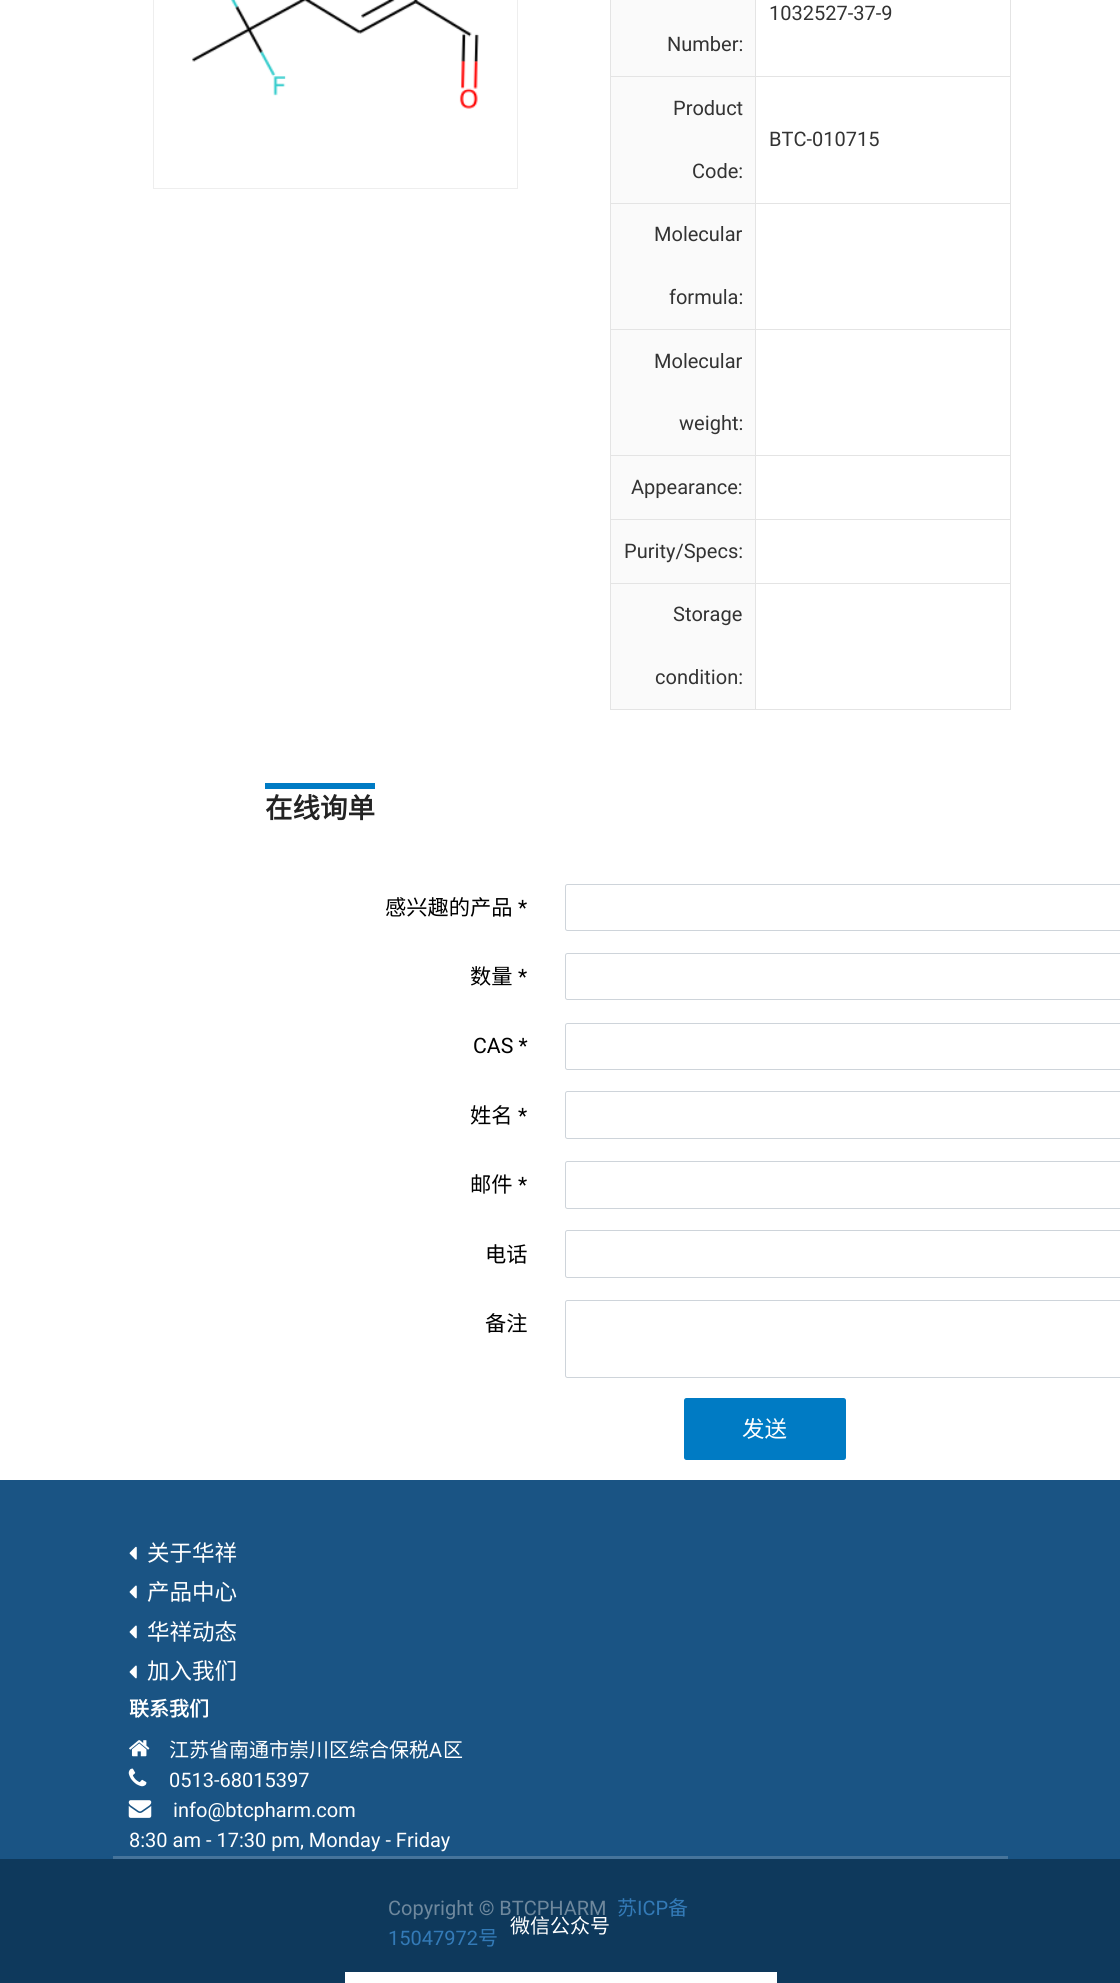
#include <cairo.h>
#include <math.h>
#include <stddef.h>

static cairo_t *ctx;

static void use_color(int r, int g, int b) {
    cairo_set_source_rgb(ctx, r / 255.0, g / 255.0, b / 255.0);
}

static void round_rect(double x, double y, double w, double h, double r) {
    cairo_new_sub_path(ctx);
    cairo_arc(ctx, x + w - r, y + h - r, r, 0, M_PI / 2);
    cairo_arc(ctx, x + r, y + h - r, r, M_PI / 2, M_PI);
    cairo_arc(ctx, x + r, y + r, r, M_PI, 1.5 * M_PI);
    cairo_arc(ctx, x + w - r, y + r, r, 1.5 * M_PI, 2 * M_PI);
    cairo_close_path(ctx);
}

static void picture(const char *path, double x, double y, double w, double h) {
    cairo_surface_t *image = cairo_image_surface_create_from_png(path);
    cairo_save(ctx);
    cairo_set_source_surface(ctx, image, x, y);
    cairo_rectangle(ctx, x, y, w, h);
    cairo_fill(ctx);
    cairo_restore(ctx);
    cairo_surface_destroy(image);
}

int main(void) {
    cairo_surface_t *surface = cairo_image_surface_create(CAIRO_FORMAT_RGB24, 1120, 1983);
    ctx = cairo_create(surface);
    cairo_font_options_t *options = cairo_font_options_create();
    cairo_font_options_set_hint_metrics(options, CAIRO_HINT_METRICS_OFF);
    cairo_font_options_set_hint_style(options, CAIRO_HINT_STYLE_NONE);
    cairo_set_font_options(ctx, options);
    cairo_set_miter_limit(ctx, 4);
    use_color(255, 255, 255);
    cairo_paint(ctx);
    cairo_rectangle(ctx, 153.5, -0.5, 364, 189);
    use_color(238, 238, 238);
    cairo_set_line_width(ctx, 1);
    cairo_stroke(ctx);
    picture("img1.png", 192, 0, 287, 109);
    use_color(250, 250, 250);
    cairo_rectangle(ctx, 611, 0, 144, 203);
    cairo_fill(ctx);
    use_color(228, 228, 228);
    cairo_rectangle(ctx, 755, 76, 256, 1);
    cairo_fill(ctx);
    cairo_rectangle(ctx, 755, 203, 256, 1);
    cairo_fill(ctx);
    cairo_rectangle(ctx, 755, 329, 256, 1);
    cairo_fill(ctx);
    cairo_rectangle(ctx, 755, 455, 256, 1);
    cairo_fill(ctx);
    cairo_rectangle(ctx, 755, 519, 256, 1);
    cairo_fill(ctx);
    cairo_rectangle(ctx, 755, 583, 256, 1);
    cairo_fill(ctx);
    cairo_rectangle(ctx, 1010, 583, 1, 127);
    cairo_fill(ctx);
    cairo_rectangle(ctx, 755, 709, 256, 1);
    cairo_fill(ctx);
    cairo_rectangle(ctx, 755, 583, 1, 127);
    cairo_fill(ctx);
    cairo_rectangle(ctx, 610, 583, 146, 1);
    cairo_fill(ctx);
    cairo_rectangle(ctx, 755, 519, 1, 65);
    cairo_fill(ctx);
    cairo_rectangle(ctx, 610, 519, 146, 1);
    cairo_fill(ctx);
    cairo_rectangle(ctx, 755, 455, 1, 65);
    cairo_fill(ctx);
    cairo_rectangle(ctx, 610, 455, 146, 1);
    cairo_fill(ctx);
    cairo_rectangle(ctx, 755, 329, 1, 127);
    cairo_fill(ctx);
    cairo_rectangle(ctx, 610, 329, 146, 1);
    cairo_fill(ctx);
    cairo_rectangle(ctx, 755, 203, 1, 127);
    cairo_fill(ctx);
    cairo_rectangle(ctx, 610, 203, 146, 1);
    cairo_fill(ctx);
    cairo_rectangle(ctx, 755, 76, 1, 128);
    cairo_fill(ctx);
    cairo_rectangle(ctx, 610, 76, 146, 1);
    cairo_fill(ctx);
    cairo_rectangle(ctx, 755, 0, 1, 78);
    cairo_fill(ctx);
    cairo_select_font_face(ctx, "Heebo", CAIRO_FONT_SLANT_NORMAL, CAIRO_FONT_WEIGHT_NORMAL);
    cairo_set_font_size(ctx, 20);
    use_color(51, 51, 51);
    cairo_move_to(ctx, 769, 20);
    cairo_show_text(ctx, "1032527-37-9");
    cairo_move_to(ctx, 667, 51);
    cairo_show_text(ctx, "Number:");
    use_color(228, 228, 228);
    cairo_rectangle(ctx, 610, 709, 146, 1);
    cairo_fill(ctx);
    cairo_rectangle(ctx, 610, 583, 1, 127);
    cairo_fill(ctx);
    cairo_rectangle(ctx, 610, 519, 1, 65);
    cairo_fill(ctx);
    cairo_rectangle(ctx, 610, 455, 1, 65);
    cairo_fill(ctx);
    cairo_rectangle(ctx, 610, 329, 1, 127);
    cairo_fill(ctx);
    cairo_rectangle(ctx, 610, 203, 1, 127);
    cairo_fill(ctx);
    cairo_rectangle(ctx, 610, 0, 1, 204);
    cairo_fill(ctx);
    use_color(51, 51, 51);
    cairo_move_to(ctx, 673, 115);
    cairo_show_text(ctx, "Product");
    cairo_move_to(ctx, 692, 178);
    cairo_show_text(ctx, "Code:");
    use_color(228, 228, 228);
    cairo_rectangle(ctx, 1010, 519, 1, 65);
    cairo_fill(ctx);
    cairo_rectangle(ctx, 1010, 455, 1, 65);
    cairo_fill(ctx);
    cairo_rectangle(ctx, 1010, 329, 1, 127);
    cairo_fill(ctx);
    cairo_rectangle(ctx, 1010, 203, 1, 127);
    cairo_fill(ctx);
    cairo_rectangle(ctx, 1010, 0, 1, 204);
    cairo_fill(ctx);
    use_color(51, 51, 51);
    cairo_move_to(ctx, 769, 146);
    cairo_show_text(ctx, "BTC-010715");
    use_color(250, 250, 250);
    cairo_rectangle(ctx, 611, 204, 144, 125);
    cairo_fill(ctx);
    use_color(51, 51, 51);
    cairo_move_to(ctx, 654, 241);
    cairo_show_text(ctx, "Molecular");
    cairo_move_to(ctx, 669, 304);
    cairo_show_text(ctx, "formula:");
    use_color(250, 250, 250);
    cairo_rectangle(ctx, 611, 330, 144, 125);
    cairo_fill(ctx);
    use_color(51, 51, 51);
    cairo_move_to(ctx, 654, 368);
    cairo_show_text(ctx, "Molecular");
    cairo_move_to(ctx, 679, 430);
    cairo_show_text(ctx, "weight:");
    use_color(250, 250, 250);
    cairo_rectangle(ctx, 611, 456, 144, 63);
    cairo_fill(ctx);
    use_color(51, 51, 51);
    cairo_move_to(ctx, 631, 494);
    cairo_show_text(ctx, "Appearance:");
    use_color(250, 250, 250);
    cairo_rectangle(ctx, 611, 520, 144, 63);
    cairo_fill(ctx);
    use_color(51, 51, 51);
    cairo_move_to(ctx, 624, 558);
    cairo_show_text(ctx, "Purity/Specs:");
    use_color(250, 250, 250);
    cairo_rectangle(ctx, 611, 584, 144, 125);
    cairo_fill(ctx);
    use_color(51, 51, 51);
    cairo_move_to(ctx, 673, 621);
    cairo_show_text(ctx, "Storage");
    cairo_move_to(ctx, 655, 684);
    cairo_show_text(ctx, "condition:");
    cairo_select_font_face(ctx, "Noto Sans CJK SC", CAIRO_FONT_SLANT_NORMAL, CAIRO_FONT_WEIGHT_BOLD);
    cairo_set_font_size(ctx, 27.5);
    use_color(35, 35, 35);
    cairo_move_to(ctx, 265, 818);
    cairo_show_text(ctx, "在线询单");
    use_color(0, 123, 196);
    cairo_rectangle(ctx, 265, 783, 110, 6);
    cairo_fill(ctx);
    cairo_select_font_face(ctx, "Noto Sans CJK SC", CAIRO_FONT_SLANT_NORMAL, CAIRO_FONT_WEIGHT_NORMAL);
    cairo_set_font_size(ctx, 21.25);
    use_color(0, 0, 0);
    cairo_move_to(ctx, 385, 915);
    cairo_show_text(ctx, "感兴趣的产品");
    cairo_select_font_face(ctx, "Heebo", CAIRO_FONT_SLANT_NORMAL, CAIRO_FONT_WEIGHT_NORMAL);
    cairo_move_to(ctx, 518, 915);
    cairo_show_text(ctx, "*");
    round_rect(565.5, 884.5, 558, 46, 2);
    use_color(206, 212, 218);
    cairo_stroke(ctx);
    cairo_select_font_face(ctx, "Noto Sans CJK SC", CAIRO_FONT_SLANT_NORMAL, CAIRO_FONT_WEIGHT_NORMAL);
    use_color(0, 0, 0);
    cairo_move_to(ctx, 470, 984);
    cairo_show_text(ctx, "数量");
    cairo_select_font_face(ctx, "Heebo", CAIRO_FONT_SLANT_NORMAL, CAIRO_FONT_WEIGHT_NORMAL);
    cairo_move_to(ctx, 518, 984);
    cairo_show_text(ctx, "*");
    round_rect(565.5, 953.5, 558, 46, 2);
    use_color(206, 212, 218);
    cairo_stroke(ctx);
    use_color(0, 0, 0);
    cairo_move_to(ctx, 473, 1053);
    cairo_show_text(ctx, "CAS *");
    round_rect(565.5, 1023.5, 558, 46, 2);
    use_color(206, 212, 218);
    cairo_stroke(ctx);
    cairo_select_font_face(ctx, "Noto Sans CJK SC", CAIRO_FONT_SLANT_NORMAL, CAIRO_FONT_WEIGHT_NORMAL);
    use_color(0, 0, 0);
    cairo_move_to(ctx, 470, 1123);
    cairo_show_text(ctx, "姓名");
    cairo_select_font_face(ctx, "Heebo", CAIRO_FONT_SLANT_NORMAL, CAIRO_FONT_WEIGHT_NORMAL);
    cairo_move_to(ctx, 518, 1123);
    cairo_show_text(ctx, "*");
    round_rect(565.5, 1091.5, 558, 47, 2);
    use_color(206, 212, 218);
    cairo_stroke(ctx);
    cairo_select_font_face(ctx, "Noto Sans CJK SC", CAIRO_FONT_SLANT_NORMAL, CAIRO_FONT_WEIGHT_NORMAL);
    use_color(0, 0, 0);
    cairo_move_to(ctx, 470, 1192);
    cairo_show_text(ctx, "邮件");
    cairo_select_font_face(ctx, "Heebo", CAIRO_FONT_SLANT_NORMAL, CAIRO_FONT_WEIGHT_NORMAL);
    cairo_move_to(ctx, 518, 1192);
    cairo_show_text(ctx, "*");
    round_rect(565.5, 1161.5, 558, 47, 2);
    use_color(206, 212, 218);
    cairo_stroke(ctx);
    cairo_select_font_face(ctx, "Noto Sans CJK SC", CAIRO_FONT_SLANT_NORMAL, CAIRO_FONT_WEIGHT_NORMAL);
    use_color(0, 0, 0);
    cairo_move_to(ctx, 485, 1262);
    cairo_show_text(ctx, "电话");
    round_rect(565.5, 1230.5, 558, 47, 2);
    use_color(206, 212, 218);
    cairo_stroke(ctx);
    use_color(0, 0, 0);
    cairo_move_to(ctx, 485, 1331);
    cairo_show_text(ctx, "备注");
    round_rect(565.5, 1300.5, 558, 77, 2);
    use_color(206, 212, 218);
    cairo_stroke(ctx);
    use_color(0, 123, 196);
    round_rect(684, 1398, 162, 62, 2.5);
    cairo_fill(ctx);
    cairo_set_font_size(ctx, 22.5);
    use_color(255, 255, 255);
    cairo_move_to(ctx, 742, 1437);
    cairo_show_text(ctx, "发送");
    use_color(26, 84, 132);
    cairo_rectangle(ctx, 0, 1480, 1120, 379);
    cairo_fill(ctx);
    picture("img2.png", 129, 1546, 8, 14);
    use_color(255, 255, 255);
    cairo_move_to(ctx, 147, 1561);
    cairo_show_text(ctx, "关于华祥");
    picture("img3.png", 129, 1585, 8, 14);
    cairo_move_to(ctx, 147, 1600);
    cairo_show_text(ctx, "产品中心");
    picture("img3.png", 129, 1625, 8, 14);
    cairo_move_to(ctx, 147, 1640);
    cairo_show_text(ctx, "华祥动态");
    picture("img3.png", 129, 1665, 8, 14);
    cairo_move_to(ctx, 147, 1679);
    cairo_show_text(ctx, "加入我们");
    cairo_select_font_face(ctx, "Noto Sans CJK SC", CAIRO_FONT_SLANT_NORMAL, CAIRO_FONT_WEIGHT_BOLD);
    cairo_set_font_size(ctx, 20);
    cairo_move_to(ctx, 129, 1716);
    cairo_show_text(ctx, "联系我们");
    picture("img4.png", 129, 1740, 21, 17);
    cairo_select_font_face(ctx, "Noto Sans CJK SC", CAIRO_FONT_SLANT_NORMAL, CAIRO_FONT_WEIGHT_NORMAL);
    cairo_move_to(ctx, 169, 1757);
    cairo_show_text(ctx, "江苏省南通市崇川区综合保税");
    cairo_select_font_face(ctx, "Heebo", CAIRO_FONT_SLANT_NORMAL, CAIRO_FONT_WEIGHT_NORMAL);
    cairo_move_to(ctx, 429, 1757);
    cairo_show_text(ctx, "A");
    cairo_select_font_face(ctx, "Noto Sans CJK SC", CAIRO_FONT_SLANT_NORMAL, CAIRO_FONT_WEIGHT_NORMAL);
    cairo_move_to(ctx, 443, 1757);
    cairo_show_text(ctx, "区");
    picture("img5.png", 128, 1768, 19, 19);
    cairo_select_font_face(ctx, "Heebo", CAIRO_FONT_SLANT_NORMAL, CAIRO_FONT_WEIGHT_NORMAL);
    cairo_move_to(ctx, 169, 1787);
    cairo_show_text(ctx, "0513-68015397");
    picture("img6.png", 128, 1800, 24, 18);
    cairo_move_to(ctx, 173, 1817);
    cairo_show_text(ctx, "info@btcpharm.com");
    cairo_move_to(ctx, 129, 1847);
    cairo_show_text(ctx, "8:30 am - 17:30 pm, Monday - Friday");
    use_color(14, 57, 92);
    cairo_rectangle(ctx, 0, 1859, 1120, 124);
    cairo_fill(ctx);
    cairo_select_font_face(ctx, "Noto Sans CJK SC", CAIRO_FONT_SLANT_NORMAL, CAIRO_FONT_WEIGHT_NORMAL);
    use_color(255, 255, 255);
    cairo_move_to(ctx, 510, 1933);
    cairo_show_text(ctx, "微信公众号");
    cairo_rectangle(ctx, 345, 1972, 432, 11);
    cairo_fill(ctx);
    use_color(70, 116, 155);
    cairo_rectangle(ctx, 113, 1856, 895, 3);
    cairo_fill(ctx);
    cairo_select_font_face(ctx, "Heebo", CAIRO_FONT_SLANT_NORMAL, CAIRO_FONT_WEIGHT_NORMAL);
    use_color(110, 136, 157);
    cairo_move_to(ctx, 388, 1915);
    cairo_show_text(ctx, "Copyright © BTCPHARM");
    cairo_select_font_face(ctx, "Noto Sans CJK SC", CAIRO_FONT_SLANT_NORMAL, CAIRO_FONT_WEIGHT_NORMAL);
    use_color(51, 122, 183);
    cairo_move_to(ctx, 617, 1915);
    cairo_show_text(ctx, "苏");
    cairo_select_font_face(ctx, "Heebo", CAIRO_FONT_SLANT_NORMAL, CAIRO_FONT_WEIGHT_NORMAL);
    cairo_move_to(ctx, 637, 1915);
    cairo_show_text(ctx, "ICP");
    cairo_select_font_face(ctx, "Noto Sans CJK SC", CAIRO_FONT_SLANT_NORMAL, CAIRO_FONT_WEIGHT_NORMAL);
    cairo_move_to(ctx, 668, 1915);
    cairo_show_text(ctx, "备");
    cairo_select_font_face(ctx, "Heebo", CAIRO_FONT_SLANT_NORMAL, CAIRO_FONT_WEIGHT_NORMAL);
    cairo_move_to(ctx, 388, 1945);
    cairo_show_text(ctx, "15047972");
    cairo_select_font_face(ctx, "Noto Sans CJK SC", CAIRO_FONT_SLANT_NORMAL, CAIRO_FONT_WEIGHT_NORMAL);
    cairo_move_to(ctx, 478, 1945);
    cairo_show_text(ctx, "号");
    cairo_surface_write_to_png(surface, "result.png");
    cairo_font_options_destroy(options);
    cairo_destroy(ctx);
    cairo_surface_destroy(surface);
    return 0;
}
